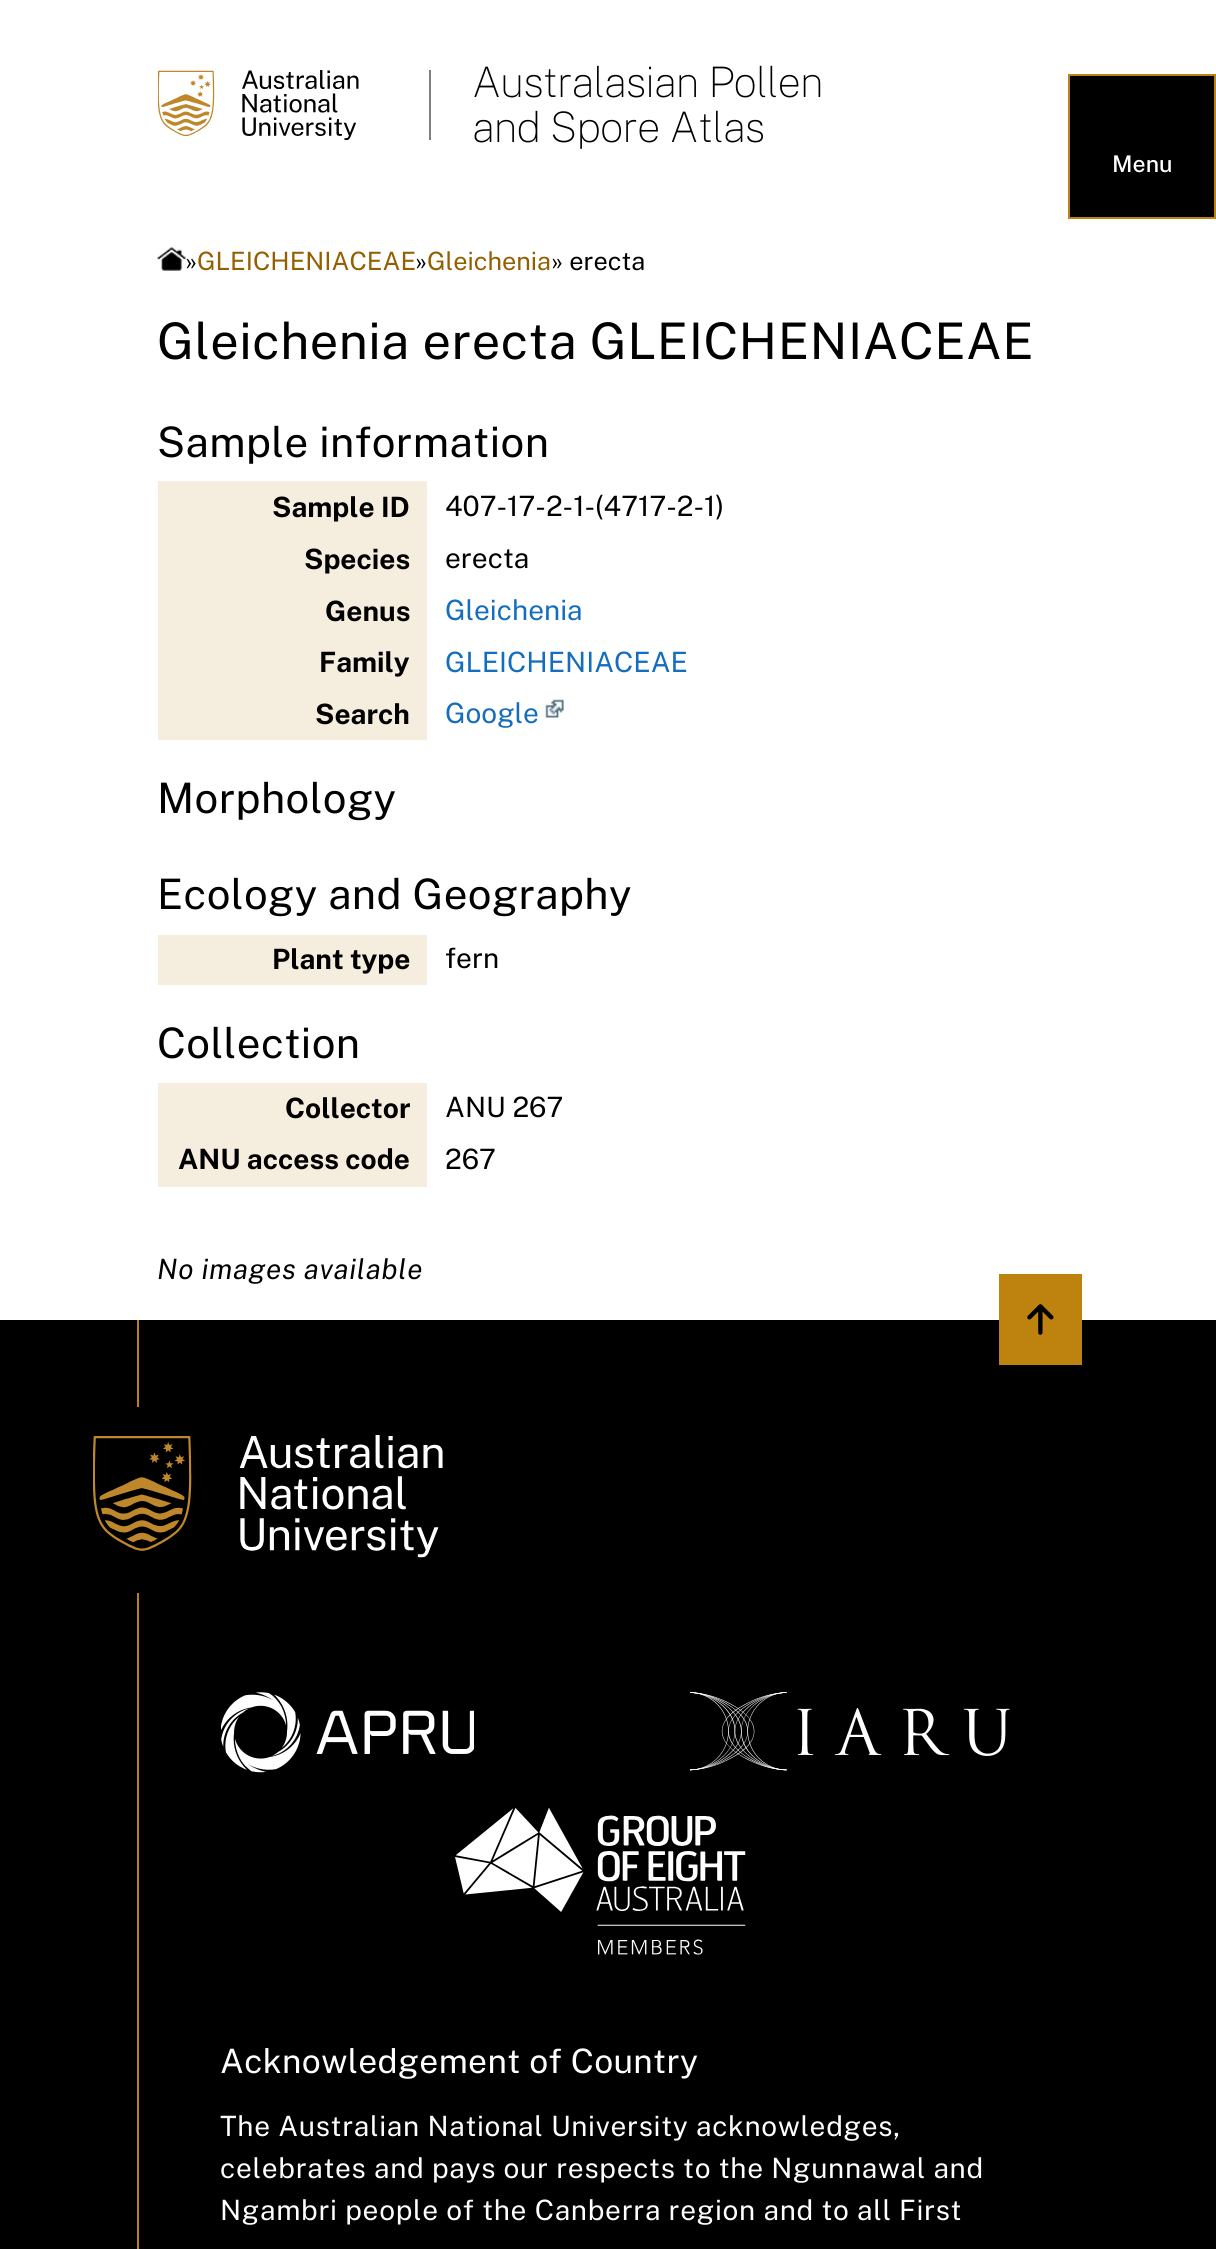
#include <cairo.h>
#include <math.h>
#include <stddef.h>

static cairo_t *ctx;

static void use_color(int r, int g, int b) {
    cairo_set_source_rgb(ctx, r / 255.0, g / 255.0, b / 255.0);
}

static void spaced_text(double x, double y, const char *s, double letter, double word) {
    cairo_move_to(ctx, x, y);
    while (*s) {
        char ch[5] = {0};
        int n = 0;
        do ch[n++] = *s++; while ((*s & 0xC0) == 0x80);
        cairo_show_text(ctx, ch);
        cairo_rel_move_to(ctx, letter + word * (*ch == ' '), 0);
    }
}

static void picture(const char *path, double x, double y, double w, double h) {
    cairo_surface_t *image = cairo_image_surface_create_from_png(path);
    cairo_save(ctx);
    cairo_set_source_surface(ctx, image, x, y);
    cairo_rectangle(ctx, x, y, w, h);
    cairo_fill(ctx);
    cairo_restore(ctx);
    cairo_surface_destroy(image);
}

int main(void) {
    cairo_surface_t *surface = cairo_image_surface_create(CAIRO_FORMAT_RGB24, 1216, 2249);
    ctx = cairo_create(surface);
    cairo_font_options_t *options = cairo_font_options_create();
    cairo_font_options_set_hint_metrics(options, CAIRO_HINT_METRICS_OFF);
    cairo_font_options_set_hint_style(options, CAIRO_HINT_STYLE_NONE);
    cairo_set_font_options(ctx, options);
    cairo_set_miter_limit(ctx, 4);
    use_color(255, 255, 255);
    cairo_paint(ctx);
    use_color(128, 128, 128);
    cairo_rectangle(ctx, 429, 70, 2, 70);
    cairo_fill(ctx);
    picture("img1.png", 158, 70, 201, 70);
    cairo_select_font_face(ctx, "Public Sans Thin", CAIRO_FONT_SLANT_NORMAL, CAIRO_FONT_WEIGHT_NORMAL);
    cairo_set_font_size(ctx, 42);
    use_color(0, 0, 0);
    spaced_text(472, 97, "Australasian Pollen", -0.9, 0);
    spaced_text(472, 142, "and Spore Atlas", -0.9, 0);
    cairo_rectangle(ctx, 1069, 75, 146, 143);
    cairo_fill_preserve(ctx);
    use_color(190, 131, 14);
    cairo_stroke(ctx);
    cairo_select_font_face(ctx, "Public Sans Medium", CAIRO_FONT_SLANT_NORMAL, CAIRO_FONT_WEIGHT_NORMAL);
    cairo_set_font_size(ctx, 23);
    use_color(255, 255, 255);
    cairo_move_to(ctx, 1112, 172);
    cairo_show_text(ctx, "Menu");
    picture("img2.png", 157, 247, 29, 24);
    cairo_select_font_face(ctx, "Public Sans", CAIRO_FONT_SLANT_NORMAL, CAIRO_FONT_WEIGHT_NORMAL);
    cairo_set_font_size(ctx, 25.25);
    use_color(0, 0, 0);
    cairo_move_to(ctx, 185, 270);
    cairo_show_text(ctx, "»");
    use_color(148, 95, 0);
    cairo_move_to(ctx, 197, 270);
    cairo_show_text(ctx, "GLEICHENIACEAE");
    use_color(0, 0, 0);
    cairo_move_to(ctx, 415, 270);
    cairo_show_text(ctx, "»");
    use_color(148, 95, 0);
    cairo_move_to(ctx, 427, 270);
    cairo_show_text(ctx, "Gleichenia");
    use_color(0, 0, 0);
    cairo_move_to(ctx, 551, 270);
    cairo_show_text(ctx, "» erecta");
    cairo_set_font_size(ctx, 50.4);
    spaced_text(157, 359, "Gleichenia erecta GLEICHENIACEAE", 0.5, 0);
    cairo_set_font_size(ctx, 42);
    spaced_text(157, 457, "Sample information", 0.4, 0);
    use_color(245, 237, 222);
    cairo_rectangle(ctx, 158, 481, 269, 259);
    cairo_fill(ctx);
    cairo_select_font_face(ctx, "Public Sans", CAIRO_FONT_SLANT_NORMAL, CAIRO_FONT_WEIGHT_BOLD);
    cairo_set_font_size(ctx, 28);
    use_color(0, 0, 0);
    cairo_move_to(ctx, 272, 517);
    cairo_show_text(ctx, "Sample ID");
    cairo_select_font_face(ctx, "Public Sans", CAIRO_FONT_SLANT_NORMAL, CAIRO_FONT_WEIGHT_NORMAL);
    cairo_move_to(ctx, 445, 516);
    cairo_show_text(ctx, "407-17-2-1-(4717-2-1)");
    cairo_select_font_face(ctx, "Public Sans", CAIRO_FONT_SLANT_NORMAL, CAIRO_FONT_WEIGHT_BOLD);
    cairo_move_to(ctx, 304, 569);
    cairo_show_text(ctx, "Species");
    cairo_select_font_face(ctx, "Public Sans", CAIRO_FONT_SLANT_NORMAL, CAIRO_FONT_WEIGHT_NORMAL);
    cairo_move_to(ctx, 445, 568);
    cairo_show_text(ctx, "erecta");
    cairo_select_font_face(ctx, "Public Sans", CAIRO_FONT_SLANT_NORMAL, CAIRO_FONT_WEIGHT_BOLD);
    cairo_move_to(ctx, 325, 621);
    cairo_show_text(ctx, "Genus");
    cairo_select_font_face(ctx, "Public Sans", CAIRO_FONT_SLANT_NORMAL, CAIRO_FONT_WEIGHT_NORMAL);
    use_color(20, 110, 189);
    cairo_move_to(ctx, 445, 620);
    cairo_show_text(ctx, "Gleichenia");
    cairo_select_font_face(ctx, "Public Sans", CAIRO_FONT_SLANT_NORMAL, CAIRO_FONT_WEIGHT_BOLD);
    use_color(0, 0, 0);
    cairo_move_to(ctx, 319, 672);
    cairo_show_text(ctx, "Family");
    cairo_select_font_face(ctx, "Public Sans", CAIRO_FONT_SLANT_NORMAL, CAIRO_FONT_WEIGHT_NORMAL);
    use_color(20, 110, 189);
    cairo_move_to(ctx, 445, 672);
    cairo_show_text(ctx, "GLEICHENIACEAE");
    cairo_select_font_face(ctx, "Public Sans", CAIRO_FONT_SLANT_NORMAL, CAIRO_FONT_WEIGHT_BOLD);
    use_color(0, 0, 0);
    cairo_move_to(ctx, 315, 724);
    cairo_show_text(ctx, "Search");
    cairo_select_font_face(ctx, "Public Sans", CAIRO_FONT_SLANT_NORMAL, CAIRO_FONT_WEIGHT_NORMAL);
    use_color(20, 110, 189);
    cairo_move_to(ctx, 445, 723);
    cairo_show_text(ctx, "Google");
    picture("img3.png", 545, 699, 19, 19);
    cairo_set_font_size(ctx, 42);
    use_color(0, 0, 0);
    spaced_text(157, 813, "Morphology", 0.4, 0);
    spaced_text(157, 909, "Ecology and Geography", 0.4, 0);
    use_color(245, 237, 222);
    cairo_rectangle(ctx, 158, 935, 269, 50);
    cairo_fill(ctx);
    cairo_select_font_face(ctx, "Public Sans", CAIRO_FONT_SLANT_NORMAL, CAIRO_FONT_WEIGHT_BOLD);
    cairo_set_font_size(ctx, 28);
    use_color(0, 0, 0);
    cairo_move_to(ctx, 272, 969);
    cairo_show_text(ctx, "Plant type");
    cairo_select_font_face(ctx, "Public Sans", CAIRO_FONT_SLANT_NORMAL, CAIRO_FONT_WEIGHT_NORMAL);
    cairo_move_to(ctx, 445, 968);
    cairo_show_text(ctx, "fern");
    cairo_set_font_size(ctx, 42);
    spaced_text(157, 1058, "Collection", 0.4, 0);
    use_color(245, 237, 222);
    cairo_rectangle(ctx, 158, 1083, 269, 104);
    cairo_fill(ctx);
    cairo_select_font_face(ctx, "Public Sans", CAIRO_FONT_SLANT_NORMAL, CAIRO_FONT_WEIGHT_BOLD);
    cairo_set_font_size(ctx, 28);
    use_color(0, 0, 0);
    cairo_move_to(ctx, 285, 1118);
    cairo_show_text(ctx, "Collector");
    cairo_select_font_face(ctx, "Public Sans", CAIRO_FONT_SLANT_NORMAL, CAIRO_FONT_WEIGHT_NORMAL);
    cairo_move_to(ctx, 445, 1117);
    cairo_show_text(ctx, "ANU 267");
    cairo_select_font_face(ctx, "Public Sans", CAIRO_FONT_SLANT_NORMAL, CAIRO_FONT_WEIGHT_BOLD);
    cairo_move_to(ctx, 178, 1169);
    cairo_show_text(ctx, "ANU access code");
    cairo_select_font_face(ctx, "Public Sans", CAIRO_FONT_SLANT_NORMAL, CAIRO_FONT_WEIGHT_NORMAL);
    cairo_move_to(ctx, 445, 1169);
    cairo_show_text(ctx, "267");
    cairo_select_font_face(ctx, "Public Sans", CAIRO_FONT_SLANT_ITALIC, CAIRO_FONT_WEIGHT_NORMAL);
    spaced_text(157, 1279, "No images available", 0.7, 0);
    cairo_rectangle(ctx, 0, 1320, 1216, 929);
    cairo_fill(ctx);
    use_color(190, 131, 14);
    cairo_rectangle(ctx, 137, 1320, 2, 929);
    cairo_fill(ctx);
    use_color(0, 0, 0);
    cairo_rectangle(ctx, 137, 1407, 2, 186);
    cairo_fill(ctx);
    picture("img4.png", 93, 1435, 350, 123);
    picture("img5.png", 221, 1692, 253, 81);
    picture("img6.png", 690, 1692, 320, 79);
    picture("img7.png", 455, 1808, 291, 147);
    cairo_select_font_face(ctx, "Public Sans", CAIRO_FONT_SLANT_NORMAL, CAIRO_FONT_WEIGHT_NORMAL);
    cairo_set_font_size(ctx, 33.6);
    use_color(255, 255, 255);
    spaced_text(220, 2073, "Acknowledgement of Country", 0.35, 0);
    cairo_set_font_size(ctx, 28);
    spaced_text(220, 2136, "The Australian National University acknowledges,", 0.7, 0);
    spaced_text(220, 2178, "celebrates and pays our respects to the Ngunnawal and", 0.7, 0);
    spaced_text(220, 2220, "Ngambri people of the Canberra region and to all First", 0.7, 0);
    use_color(190, 131, 14);
    cairo_rectangle(ctx, 999, 1274, 83, 91);
    cairo_fill(ctx);
    picture("img8.png", 1027, 1304, 27, 31);
    cairo_surface_write_to_png(surface, "result.png");
    cairo_font_options_destroy(options);
    cairo_destroy(ctx);
    cairo_surface_destroy(surface);
    return 0;
}
